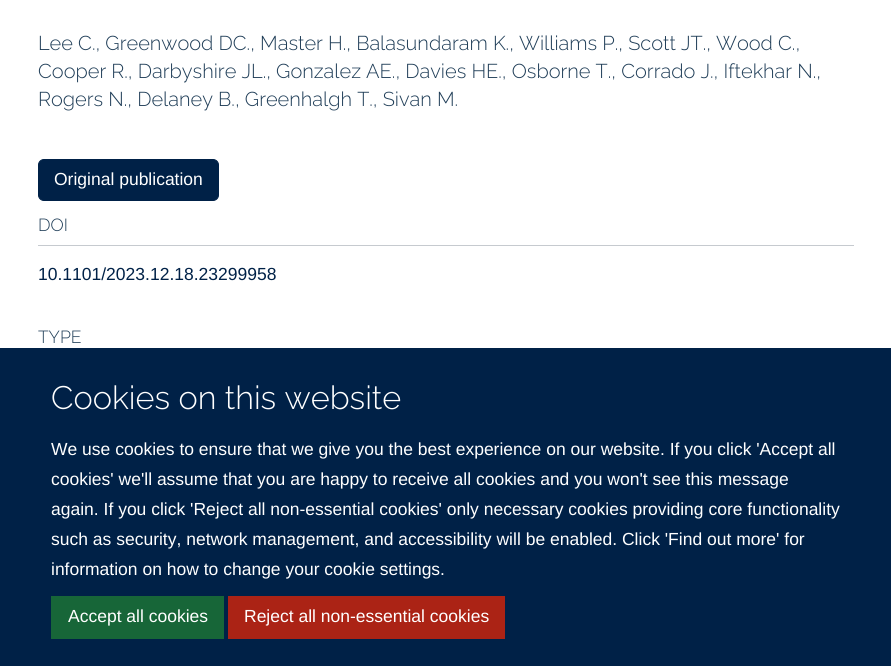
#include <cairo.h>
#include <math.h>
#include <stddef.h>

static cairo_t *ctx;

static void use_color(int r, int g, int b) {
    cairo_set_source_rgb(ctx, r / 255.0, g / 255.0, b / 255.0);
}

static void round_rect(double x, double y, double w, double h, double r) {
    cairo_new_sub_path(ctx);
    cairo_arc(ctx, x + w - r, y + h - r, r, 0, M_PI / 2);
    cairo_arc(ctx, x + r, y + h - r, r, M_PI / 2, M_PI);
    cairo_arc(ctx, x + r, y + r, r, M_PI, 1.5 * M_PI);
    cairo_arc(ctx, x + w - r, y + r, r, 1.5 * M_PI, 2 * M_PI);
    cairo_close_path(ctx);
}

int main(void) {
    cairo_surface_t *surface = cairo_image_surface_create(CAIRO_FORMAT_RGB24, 891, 666);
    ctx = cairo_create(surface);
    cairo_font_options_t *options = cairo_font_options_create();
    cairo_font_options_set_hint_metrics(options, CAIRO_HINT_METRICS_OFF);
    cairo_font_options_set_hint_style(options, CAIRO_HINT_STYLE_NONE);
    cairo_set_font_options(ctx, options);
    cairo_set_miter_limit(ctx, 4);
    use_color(255, 255, 255);
    cairo_paint(ctx);
    cairo_select_font_face(ctx, "Raleway Light", CAIRO_FONT_SLANT_NORMAL, CAIRO_FONT_WEIGHT_NORMAL);
    cairo_set_font_size(ctx, 20);
    use_color(32, 62, 88);
    cairo_move_to(ctx, 38, 50);
    cairo_show_text(ctx, "Lee C., Greenwood DC., Master H., Balasundaram K., Williams P., Scott JT., Wood C.,");
    cairo_move_to(ctx, 38, 78);
    cairo_show_text(ctx, "Cooper R., Darbyshire JL., Gonzalez AE., Davies HE., Osborne T., Corrado J., Iftekhar N.,");
    cairo_move_to(ctx, 38, 106);
    cairo_show_text(ctx, "Rogers N., Delaney B., Greenhalgh T., Sivan M.");
    use_color(0, 33, 71);
    round_rect(38.5, 159.5, 180, 41, 5.5);
    cairo_fill_preserve(ctx);
    cairo_set_line_width(ctx, 1);
    cairo_stroke(ctx);
    cairo_select_font_face(ctx, "Liberation Sans", CAIRO_FONT_SLANT_NORMAL, CAIRO_FONT_WEIGHT_NORMAL);
    cairo_set_font_size(ctx, 17.5);
    use_color(255, 255, 255);
    cairo_move_to(ctx, 54, 185);
    cairo_show_text(ctx, "Original publication");
    use_color(198, 202, 207);
    cairo_rectangle(ctx, 38, 245, 816, 1);
    cairo_fill(ctx);
    cairo_select_font_face(ctx, "Raleway Light", CAIRO_FONT_SLANT_NORMAL, CAIRO_FONT_WEIGHT_NORMAL);
    use_color(32, 62, 88);
    cairo_move_to(ctx, 38, 231);
    cairo_show_text(ctx, "DOI");
    cairo_select_font_face(ctx, "Liberation Sans", CAIRO_FONT_SLANT_NORMAL, CAIRO_FONT_WEIGHT_NORMAL);
    use_color(0, 33, 71);
    cairo_move_to(ctx, 38, 280);
    cairo_show_text(ctx, "10.1101/2023.12.18.23299958");
    cairo_select_font_face(ctx, "Raleway Light", CAIRO_FONT_SLANT_NORMAL, CAIRO_FONT_WEIGHT_NORMAL);
    use_color(32, 62, 88);
    cairo_move_to(ctx, 38, 343);
    cairo_show_text(ctx, "TYPE");
    use_color(0, 33, 71);
    cairo_rectangle(ctx, 0, 348, 891, 318);
    cairo_fill(ctx);
    cairo_set_font_size(ctx, 32.5);
    use_color(255, 255, 255);
    cairo_move_to(ctx, 51, 409);
    cairo_show_text(ctx, "Cookies on this website");
    cairo_select_font_face(ctx, "Liberation Sans", CAIRO_FONT_SLANT_NORMAL, CAIRO_FONT_WEIGHT_NORMAL);
    cairo_set_font_size(ctx, 17.5);
    cairo_move_to(ctx, 51, 455);
    cairo_show_text(ctx, "We use cookies to ensure that we give you the best experience on our website. If you click 'Accept all");
    cairo_move_to(ctx, 51, 485);
    cairo_show_text(ctx, "cookies' we'll assume that you are happy to receive all cookies and you won't see this message");
    cairo_move_to(ctx, 51, 515);
    cairo_show_text(ctx, "again. If you click 'Reject all non-essential cookies' only necessary cookies providing core functionality");
    cairo_move_to(ctx, 51, 545);
    cairo_show_text(ctx, "such as security, network management, and accessibility will be enabled. Click 'Find out more' for");
    cairo_move_to(ctx, 51, 575);
    cairo_show_text(ctx, "information on how to change your cookie settings.");
    use_color(23, 102, 56);
    cairo_rectangle(ctx, 51, 596, 173, 43);
    cairo_fill(ctx);
    use_color(255, 255, 255);
    cairo_move_to(ctx, 68, 622);
    cairo_show_text(ctx, "Accept all cookies");
    use_color(171, 35, 21);
    cairo_rectangle(ctx, 228, 596, 277, 43);
    cairo_fill(ctx);
    use_color(255, 255, 255);
    cairo_move_to(ctx, 244, 622);
    cairo_show_text(ctx, "Reject all non-essential cookies");
    cairo_surface_write_to_png(surface, "result.png");
    cairo_font_options_destroy(options);
    cairo_destroy(ctx);
    cairo_surface_destroy(surface);
    return 0;
}
